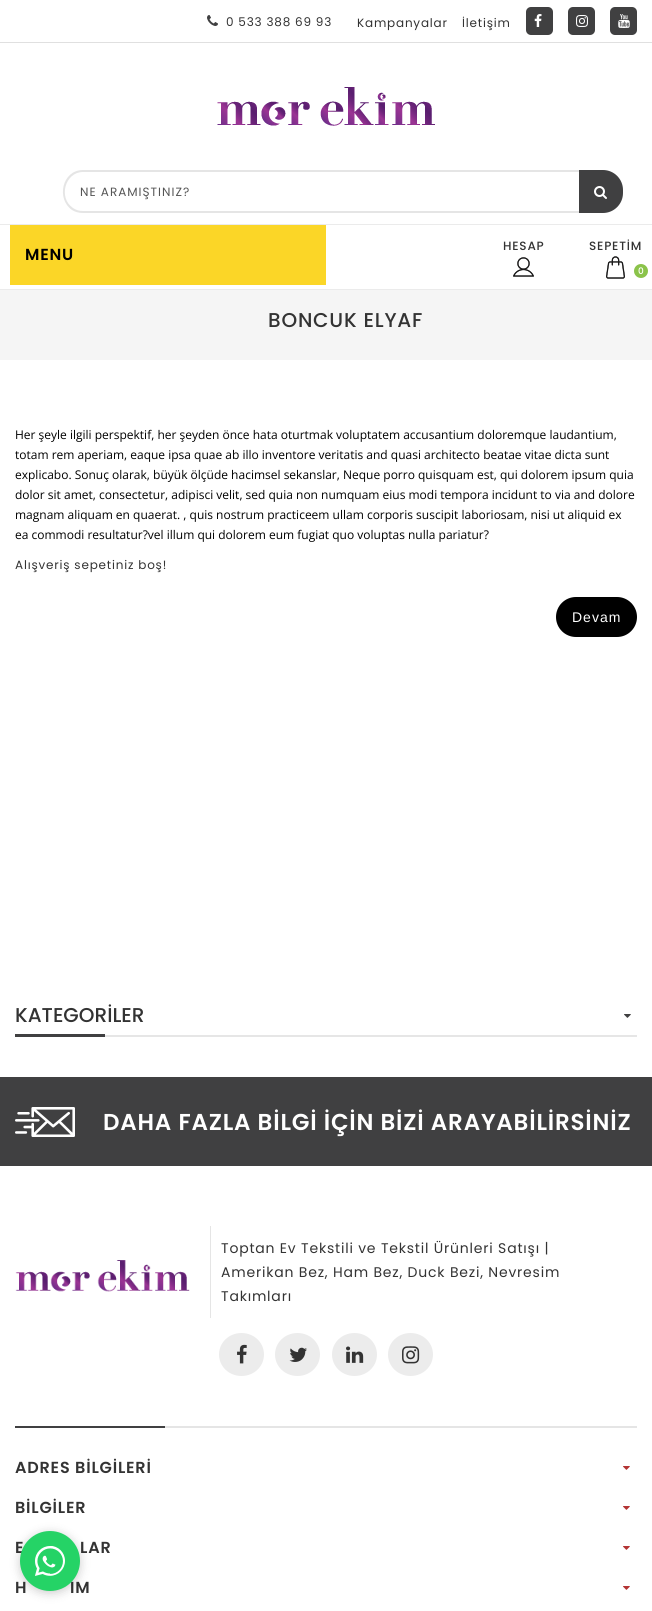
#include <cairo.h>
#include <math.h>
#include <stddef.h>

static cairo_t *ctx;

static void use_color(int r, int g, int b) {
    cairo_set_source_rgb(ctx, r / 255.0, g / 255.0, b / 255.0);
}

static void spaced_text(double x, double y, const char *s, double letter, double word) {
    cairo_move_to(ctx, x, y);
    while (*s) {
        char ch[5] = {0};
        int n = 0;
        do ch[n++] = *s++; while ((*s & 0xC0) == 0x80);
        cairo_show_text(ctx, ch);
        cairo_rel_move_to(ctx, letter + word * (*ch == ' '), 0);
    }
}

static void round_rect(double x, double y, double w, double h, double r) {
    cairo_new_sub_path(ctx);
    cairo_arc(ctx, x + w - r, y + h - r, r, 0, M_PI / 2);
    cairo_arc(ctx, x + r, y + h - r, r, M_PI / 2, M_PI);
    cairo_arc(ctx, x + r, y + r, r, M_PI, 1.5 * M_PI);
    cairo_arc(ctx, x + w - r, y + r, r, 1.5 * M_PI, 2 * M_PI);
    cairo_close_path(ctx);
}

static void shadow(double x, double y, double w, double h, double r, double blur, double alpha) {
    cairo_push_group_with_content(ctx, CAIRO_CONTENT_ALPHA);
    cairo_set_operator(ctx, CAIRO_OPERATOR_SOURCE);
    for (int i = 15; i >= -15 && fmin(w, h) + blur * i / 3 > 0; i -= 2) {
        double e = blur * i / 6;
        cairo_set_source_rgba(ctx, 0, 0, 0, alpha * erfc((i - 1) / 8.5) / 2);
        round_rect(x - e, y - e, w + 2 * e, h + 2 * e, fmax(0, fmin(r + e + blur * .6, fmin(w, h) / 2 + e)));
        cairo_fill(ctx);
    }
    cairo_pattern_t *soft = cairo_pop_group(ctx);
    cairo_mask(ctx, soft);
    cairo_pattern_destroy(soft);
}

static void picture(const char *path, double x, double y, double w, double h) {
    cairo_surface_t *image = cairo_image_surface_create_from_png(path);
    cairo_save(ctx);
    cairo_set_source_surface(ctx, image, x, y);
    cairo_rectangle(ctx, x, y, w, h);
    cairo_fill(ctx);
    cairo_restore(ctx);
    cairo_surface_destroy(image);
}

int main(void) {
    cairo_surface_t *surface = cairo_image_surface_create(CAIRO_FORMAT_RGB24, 652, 1611);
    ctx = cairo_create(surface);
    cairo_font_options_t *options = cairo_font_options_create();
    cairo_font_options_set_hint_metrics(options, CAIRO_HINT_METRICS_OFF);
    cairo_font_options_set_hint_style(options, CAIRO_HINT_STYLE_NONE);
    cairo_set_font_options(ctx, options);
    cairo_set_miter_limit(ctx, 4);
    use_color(255, 255, 255);
    cairo_paint(ctx);
    use_color(224, 224, 224);
    cairo_rectangle(ctx, 0, 42, 652, 1);
    cairo_fill(ctx);
    picture("img1.png", 207, 15, 11, 11);
    cairo_select_font_face(ctx, "Poppins", CAIRO_FONT_SLANT_NORMAL, CAIRO_FONT_WEIGHT_NORMAL);
    cairo_set_font_size(ctx, 12);
    use_color(51, 51, 51);
    spaced_text(226, 26, "0 533 388 69 93", 0.8, 0);
    spaced_text(357, 27, "Kampanyalar", 0.8, 0);
    spaced_text(462, 27, "İletişim", 0.8, 0);
    use_color(64, 64, 65);
    round_rect(526, 7, 27, 28, 5);
    cairo_fill(ctx);
    picture("img2.png", 534, 14, 8, 13);
    round_rect(568, 7, 27, 28, 5);
    cairo_fill(ctx);
    picture("img3.png", 576, 15, 12, 12);
    round_rect(610, 7, 27, 28, 5);
    cairo_fill(ctx);
    picture("img4.png", 618, 14, 12, 14);
    picture("img5.png", 217, 87, 218, 39);
    use_color(229, 229, 229);
    cairo_set_fill_rule(ctx, CAIRO_FILL_RULE_EVEN_ODD);
    cairo_new_path(ctx);
    cairo_move_to(ctx, 83, 170);
    cairo_line_to(ctx, 579, 170);
    cairo_line_to(ctx, 579, 213);
    cairo_line_to(ctx, 83, 213);
    cairo_curve_to(ctx, 79, 213, 75, 212, 72, 210);
    cairo_curve_to(ctx, 56, 199, 62, 170, 83, 170);
    cairo_close_path(ctx);
    cairo_move_to(ctx, 83, 172);
    cairo_line_to(ctx, 579, 172);
    cairo_line_to(ctx, 579, 211);
    cairo_line_to(ctx, 83, 211);
    cairo_curve_to(ctx, 79, 211, 76, 210, 73, 208);
    cairo_curve_to(ctx, 58, 198, 65, 172, 83, 172);
    cairo_close_path(ctx);
    cairo_fill(ctx);
    use_color(85, 85, 85);
    spaced_text(80, 196, "NE ARAMIŞTINIZ?", 1, 0);
    use_color(64, 64, 65);
    cairo_new_path(ctx);
    cairo_move_to(ctx, 579, 170);
    cairo_line_to(ctx, 603, 170);
    cairo_curve_to(ctx, 614, 170, 623, 179, 623, 190);
    cairo_line_to(ctx, 623, 193);
    cairo_curve_to(ctx, 623, 204, 614, 213, 603, 213);
    cairo_line_to(ctx, 579, 213);
    cairo_close_path(ctx);
    cairo_fill(ctx);
    picture("img6.png", 594, 186, 13, 13);
    use_color(235, 235, 235);
    cairo_rectangle(ctx, 0, 224, 652, 1);
    cairo_fill(ctx);
    cairo_rectangle(ctx, 0, 289, 652, 1);
    cairo_fill(ctx);
    cairo_select_font_face(ctx, "Poppins Medium", CAIRO_FONT_SLANT_NORMAL, CAIRO_FONT_WEIGHT_NORMAL);
    use_color(51, 51, 51);
    spaced_text(503, 250, "HESAP", 0.8, 0);
    picture("img7.png", 513, 257, 21, 20);
    spaced_text(589, 250, "SEPETİM", 0.8, 0);
    picture("img8.png", 606, 256, 19, 23);
    use_color(139, 195, 74);
    cairo_arc(ctx, 641, 271, 7, 0, 2 * M_PI);
    cairo_fill(ctx);
    cairo_set_font_size(ctx, 9);
    use_color(255, 255, 255);
    spaced_text(638, 274, "0", 0.8, 0);
    use_color(251, 214, 39);
    cairo_rectangle(ctx, 10, 225, 316, 60);
    cairo_fill(ctx);
    cairo_select_font_face(ctx, "Poppins SemiBold", CAIRO_FONT_SLANT_NORMAL, CAIRO_FONT_WEIGHT_NORMAL);
    cairo_set_font_size(ctx, 16);
    use_color(0, 0, 0);
    spaced_text(25, 260, "MENU", 0.8, 0);
    use_color(245, 245, 245);
    cairo_rectangle(ctx, 0, 290, 652, 70);
    cairo_fill(ctx);
    cairo_select_font_face(ctx, "Poppins Medium", CAIRO_FONT_SLANT_NORMAL, CAIRO_FONT_WEIGHT_NORMAL);
    cairo_set_font_size(ctx, 20);
    use_color(51, 51, 51);
    spaced_text(268, 327, "BONCUK ELYAF", 0.8, 0);
    cairo_select_font_face(ctx, "Open Sans", CAIRO_FONT_SLANT_NORMAL, CAIRO_FONT_WEIGHT_NORMAL);
    cairo_set_font_size(ctx, 12);
    use_color(0, 0, 0);
    cairo_move_to(ctx, 15, 439);
    cairo_show_text(ctx, "Her şeyle ilgili perspektif, her şeyden önce hata oturtmak voluptatem accusantium doloremque laudantium,");
    cairo_move_to(ctx, 15, 459);
    cairo_show_text(ctx, "totam rem aperiam, eaque ipsa quae ab illo inventore veritatis and quasi architecto beatae vitae dicta sunt");
    cairo_move_to(ctx, 15, 479);
    cairo_show_text(ctx, "explicabo. Sonuç olarak, büyük ölçüde hacimsel sekanslar, Neque porro quisquam est, qui dolorem ipsum quia");
    cairo_move_to(ctx, 15, 499);
    cairo_show_text(ctx, "dolor sit amet, consectetur, adipisci velit, sed quia non numquam eius modi tempora incidunt to via and dolore");
    cairo_move_to(ctx, 15, 519);
    cairo_show_text(ctx, "magnam aliquam en quaerat. , quis nostrum practiceem ullam corporis suscipit laboriosam, nisi ut aliquid ex");
    cairo_move_to(ctx, 15, 539);
    cairo_show_text(ctx, "ea commodi resultatur?vel illum qui dolorem eum fugiat quo voluptas nulla pariatur?");
    cairo_select_font_face(ctx, "Poppins", CAIRO_FONT_SLANT_NORMAL, CAIRO_FONT_WEIGHT_NORMAL);
    use_color(51, 51, 51);
    spaced_text(15, 569, "Alışveriş sepetiniz boş!", 0.8, 0);
    use_color(0, 0, 0);
    round_rect(556, 597, 81, 40, 20);
    cairo_fill(ctx);
    cairo_select_font_face(ctx, "Liberation Sans", CAIRO_FONT_SLANT_NORMAL, CAIRO_FONT_WEIGHT_NORMAL);
    cairo_set_font_size(ctx, 14);
    use_color(255, 255, 255);
    spaced_text(572, 622, "Devam", 1, 0);
    use_color(230, 230, 230);
    cairo_rectangle(ctx, 105, 1035, 532, 2);
    cairo_fill(ctx);
    cairo_select_font_face(ctx, "Poppins Medium", CAIRO_FONT_SLANT_NORMAL, CAIRO_FONT_WEIGHT_NORMAL);
    cairo_set_font_size(ctx, 20);
    use_color(51, 51, 51);
    cairo_move_to(ctx, 15, 1022);
    cairo_show_text(ctx, "KATEGORİLER");
    picture("img9.png", 624, 1014, 7, 4);
    use_color(64, 64, 65);
    cairo_rectangle(ctx, 15, 1034, 90, 3);
    cairo_fill(ctx);
    cairo_rectangle(ctx, 0, 1077, 652, 89);
    cairo_fill(ctx);
    picture("img10.png", 15, 1107, 60, 30);
    cairo_select_font_face(ctx, "Poppins SemiBold", CAIRO_FONT_SLANT_NORMAL, CAIRO_FONT_WEIGHT_NORMAL);
    cairo_set_font_size(ctx, 23);
    use_color(255, 255, 255);
    spaced_text(103, 1130, "DAHA FAZLA BİLGİ İÇİN BİZİ ARAYABİLİRSİNİZ", 0.8, 0);
    picture("img11.png", 15, 1260, 175, 32);
    use_color(229, 229, 229);
    cairo_rectangle(ctx, 210, 1226, 1, 92);
    cairo_fill(ctx);
    cairo_select_font_face(ctx, "Poppins", CAIRO_FONT_SLANT_NORMAL, CAIRO_FONT_WEIGHT_NORMAL);
    cairo_set_font_size(ctx, 14);
    use_color(51, 51, 51);
    spaced_text(221, 1253, "Toptan Ev Tekstili ve Tekstil Ürünleri Satışı |", 0.8, 0);
    spaced_text(221, 1277, "Amerikan Bez, Ham Bez, Duck Bezi, Nevresim", 0.8, 0);
    spaced_text(221, 1301, "Takımları", 0.8, 0);
    use_color(236, 236, 236);
    cairo_new_path(ctx);
    cairo_move_to(ctx, 241.5, 1333);
    cairo_curve_to(ctx, 254, 1333, 264, 1342.5, 264, 1354.5);
    cairo_curve_to(ctx, 264, 1366.5, 254, 1376, 241.5, 1376);
    cairo_curve_to(ctx, 229, 1376, 219, 1366.5, 219, 1354.5);
    cairo_curve_to(ctx, 219, 1342.5, 229, 1333, 241.5, 1333);
    cairo_close_path(ctx);
    cairo_fill(ctx);
    picture("img12.png", 237, 1344, 10, 20);
    cairo_new_path(ctx);
    cairo_move_to(ctx, 297.5, 1333);
    cairo_curve_to(ctx, 310, 1333, 320, 1342.5, 320, 1354.5);
    cairo_curve_to(ctx, 320, 1366.5, 310, 1376, 297.5, 1376);
    cairo_curve_to(ctx, 285, 1376, 275, 1366.5, 275, 1354.5);
    cairo_curve_to(ctx, 275, 1342.5, 285, 1333, 297.5, 1333);
    cairo_close_path(ctx);
    cairo_fill(ctx);
    picture("img13.png", 289, 1347, 18, 15);
    cairo_new_path(ctx);
    cairo_move_to(ctx, 354.5, 1333);
    cairo_curve_to(ctx, 367, 1333, 377, 1342.5, 377, 1354.5);
    cairo_curve_to(ctx, 377, 1366.5, 367, 1376, 354.5, 1376);
    cairo_curve_to(ctx, 342, 1376, 332, 1366.5, 332, 1354.5);
    cairo_curve_to(ctx, 332, 1342.5, 342, 1333, 354.5, 1333);
    cairo_close_path(ctx);
    cairo_fill(ctx);
    picture("img14.png", 346, 1346, 18, 17);
    cairo_new_path(ctx);
    cairo_move_to(ctx, 410.5, 1333);
    cairo_curve_to(ctx, 423, 1333, 433, 1342.5, 433, 1354.5);
    cairo_curve_to(ctx, 433, 1366.5, 423, 1376, 410.5, 1376);
    cairo_curve_to(ctx, 398, 1376, 388, 1366.5, 388, 1354.5);
    cairo_curve_to(ctx, 388, 1342.5, 398, 1333, 410.5, 1333);
    cairo_close_path(ctx);
    cairo_fill(ctx);
    picture("img15.png", 402, 1346, 18, 18);
    use_color(229, 229, 229);
    cairo_rectangle(ctx, 165, 1426, 472, 2);
    cairo_fill(ctx);
    use_color(64, 64, 65);
    cairo_rectangle(ctx, 15, 1426, 150, 2);
    cairo_fill(ctx);
    cairo_select_font_face(ctx, "Poppins SemiBold", CAIRO_FONT_SLANT_NORMAL, CAIRO_FONT_WEIGHT_NORMAL);
    cairo_set_font_size(ctx, 16);
    use_color(51, 51, 51);
    spaced_text(15, 1473, "ADRES BİLGİLERİ", 0.8, 0);
    picture("img16.png", 623, 1466, 7, 4);
    spaced_text(15, 1513, "BİLGİLER", 0.8, 0);
    picture("img16.png", 623, 1506, 7, 4);
    spaced_text(15, 1553, "E", 0.8, 0);
    spaced_text(80, 1553, "LAR", 0.8, 0);
    picture("img16.png", 623, 1546, 7, 4);
    spaced_text(15, 1593, "H", 0.8, 0);
    spaced_text(70, 1593, "IM", 0.8, 0);
    picture("img16.png", 623, 1586, 7, 4);
    use_color(0, 0, 0);
    shadow(20, 1533, 60, 60, 30, 5, 0.2);
    use_color(37, 211, 102);
    cairo_arc(ctx, 50, 1561, 30, 0, 2 * M_PI);
    cairo_fill(ctx);
    picture("img17.png", 35, 1546, 30, 30);
    cairo_surface_write_to_png(surface, "result.png");
    cairo_font_options_destroy(options);
    cairo_destroy(ctx);
    cairo_surface_destroy(surface);
    return 0;
}
